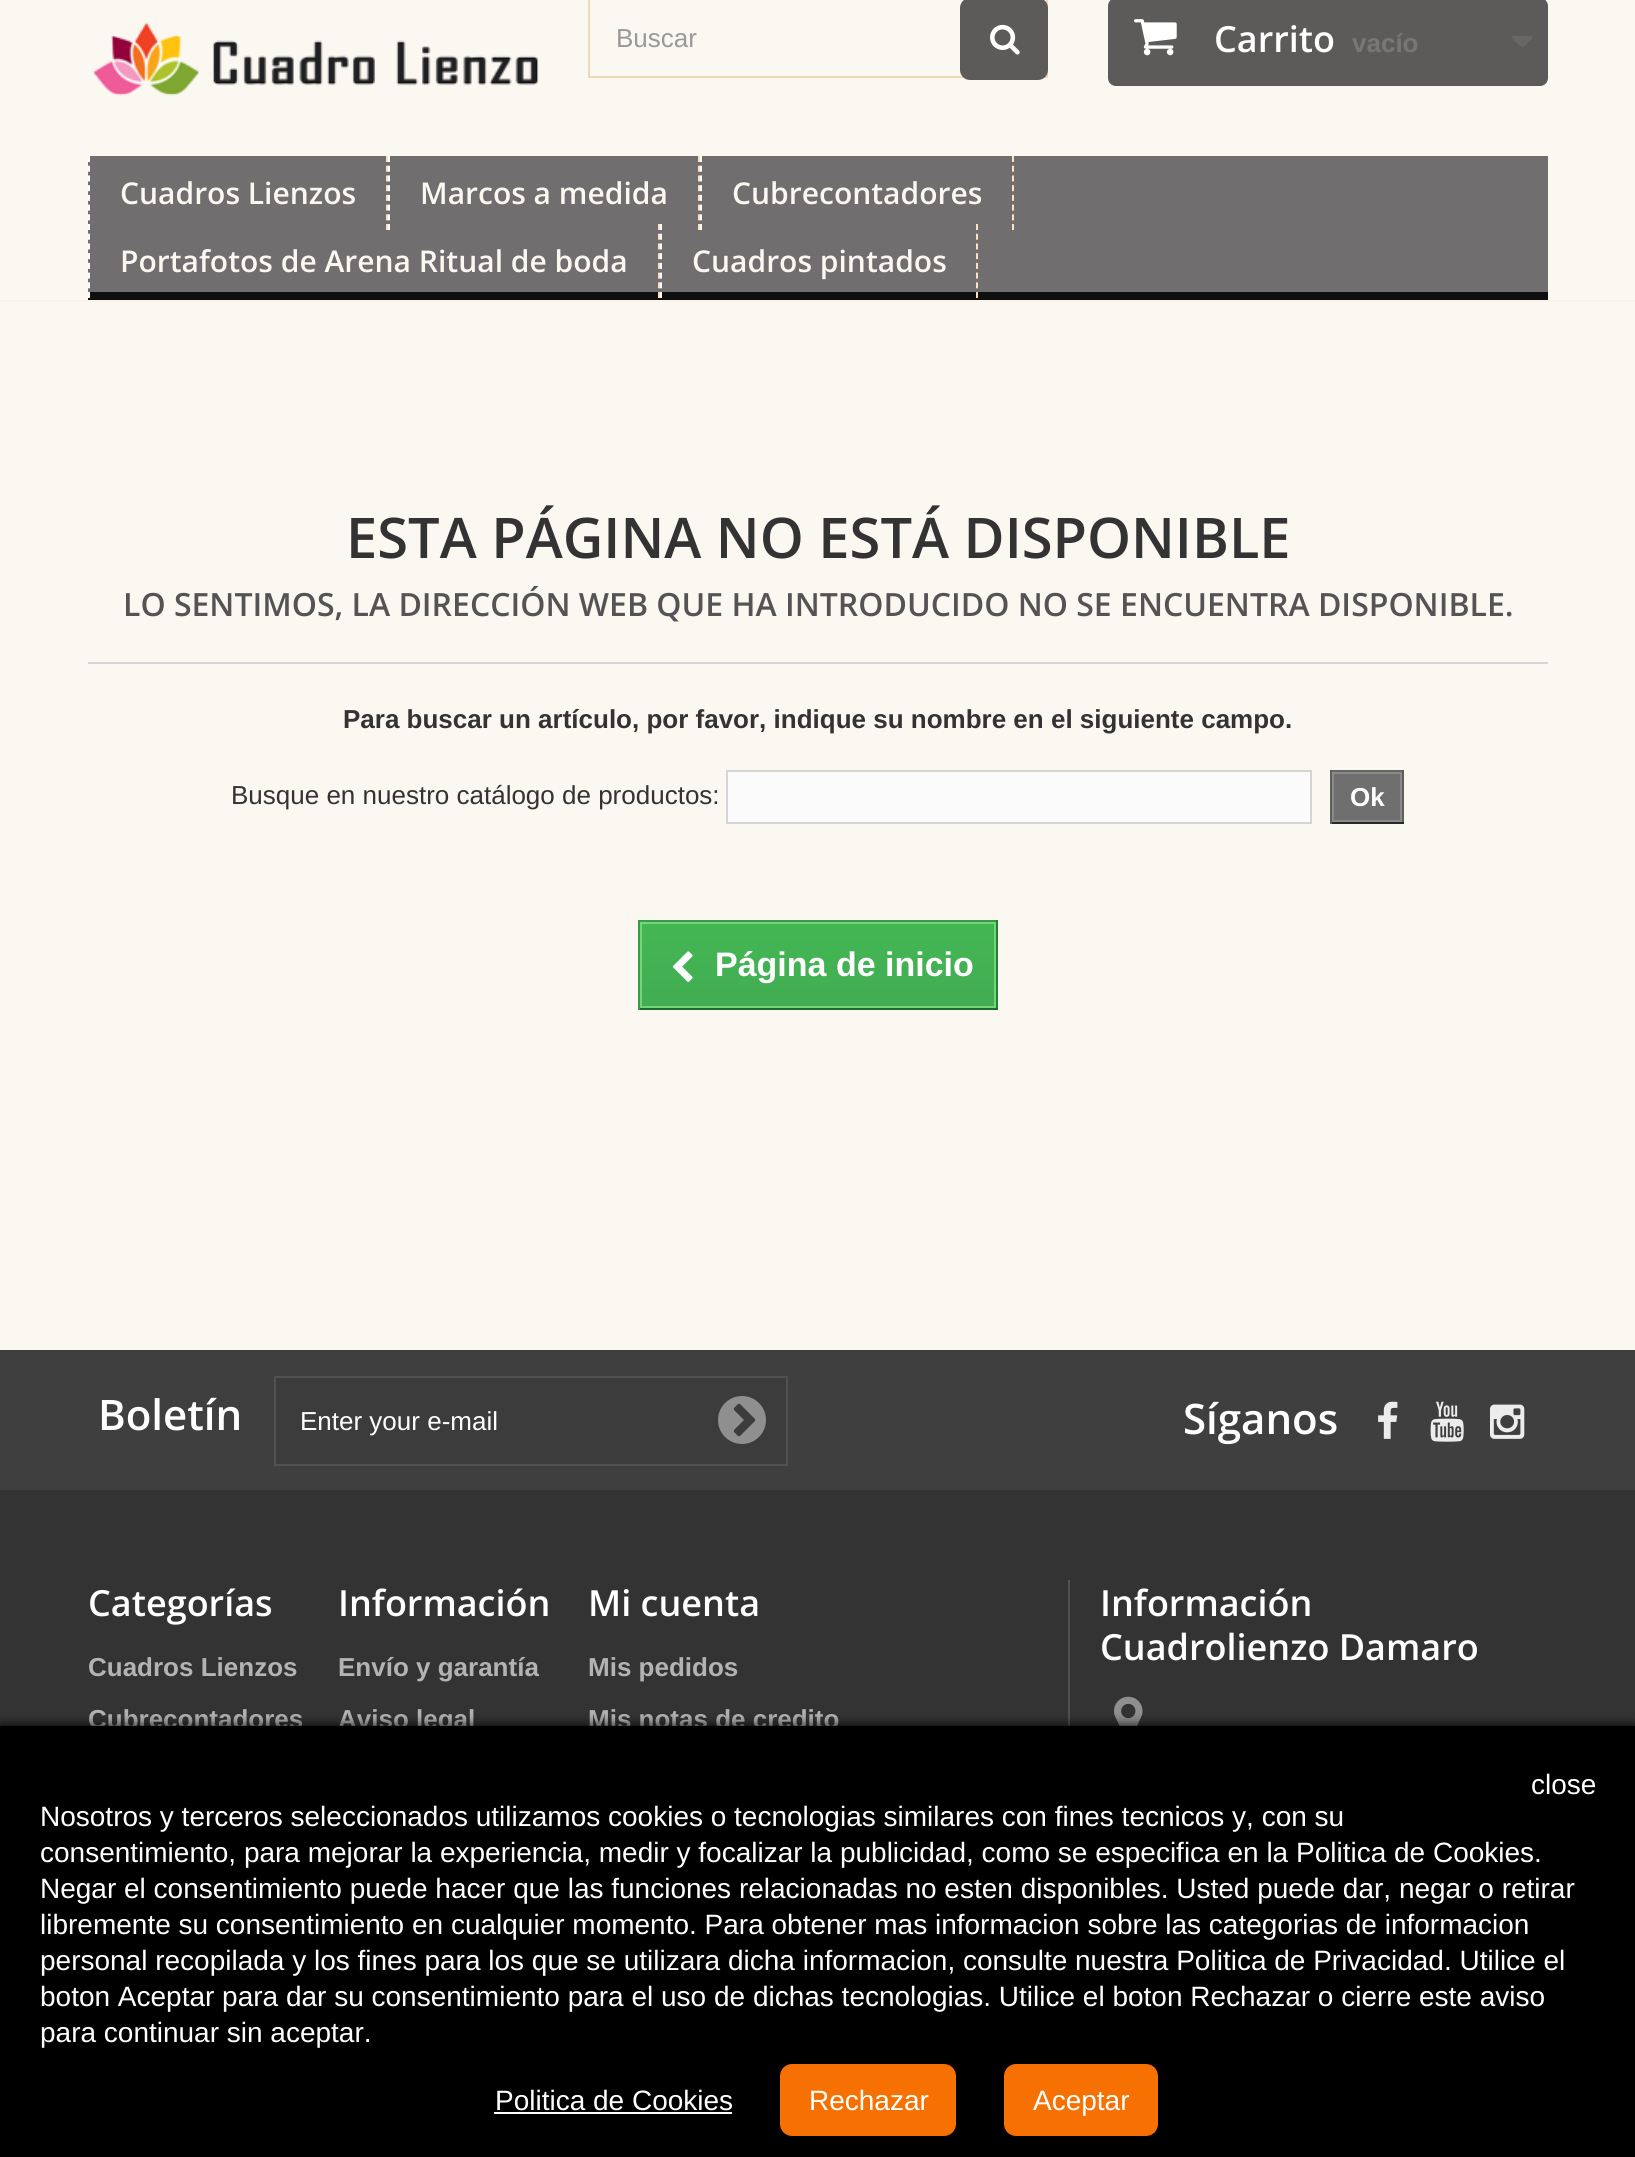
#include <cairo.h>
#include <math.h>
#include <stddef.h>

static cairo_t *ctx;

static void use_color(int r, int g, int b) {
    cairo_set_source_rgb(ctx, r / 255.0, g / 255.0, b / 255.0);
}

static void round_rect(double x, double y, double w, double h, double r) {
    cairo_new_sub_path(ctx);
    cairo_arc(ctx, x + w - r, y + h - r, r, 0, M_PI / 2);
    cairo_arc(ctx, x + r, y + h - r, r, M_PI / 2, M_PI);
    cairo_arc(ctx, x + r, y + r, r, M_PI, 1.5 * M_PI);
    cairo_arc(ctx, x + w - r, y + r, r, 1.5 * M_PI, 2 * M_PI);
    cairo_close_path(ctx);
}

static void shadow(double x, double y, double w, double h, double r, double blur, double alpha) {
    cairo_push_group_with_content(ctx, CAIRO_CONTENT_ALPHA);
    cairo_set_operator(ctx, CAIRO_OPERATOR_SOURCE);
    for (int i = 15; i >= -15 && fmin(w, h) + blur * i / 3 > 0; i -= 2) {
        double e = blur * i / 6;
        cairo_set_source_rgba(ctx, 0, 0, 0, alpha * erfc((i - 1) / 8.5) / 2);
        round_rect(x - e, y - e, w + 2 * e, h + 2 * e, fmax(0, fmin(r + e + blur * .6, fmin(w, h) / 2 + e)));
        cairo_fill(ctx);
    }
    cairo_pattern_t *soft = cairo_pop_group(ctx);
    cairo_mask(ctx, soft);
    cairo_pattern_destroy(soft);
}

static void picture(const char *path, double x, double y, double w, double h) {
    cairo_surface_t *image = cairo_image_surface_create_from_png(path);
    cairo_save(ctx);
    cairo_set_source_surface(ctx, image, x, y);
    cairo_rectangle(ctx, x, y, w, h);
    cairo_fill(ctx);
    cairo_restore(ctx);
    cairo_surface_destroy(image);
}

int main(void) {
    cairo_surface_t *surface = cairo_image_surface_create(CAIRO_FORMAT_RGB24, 1635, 2157);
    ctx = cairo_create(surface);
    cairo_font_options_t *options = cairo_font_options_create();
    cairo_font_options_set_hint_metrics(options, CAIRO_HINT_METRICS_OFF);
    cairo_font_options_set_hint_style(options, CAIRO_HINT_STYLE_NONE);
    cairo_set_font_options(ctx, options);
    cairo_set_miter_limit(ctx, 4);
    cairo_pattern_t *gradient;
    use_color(251, 247, 241);
    cairo_paint(ctx);
    use_color(251, 243, 233);
    cairo_rectangle(ctx, 0, 300, 1635, 2);
    cairo_fill(ctx);
    picture("img1.png", 92, 22, 447, 74);
    cairo_rectangle(ctx, 589, -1, 458, 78);
    use_color(243, 214, 179);
    cairo_stroke(ctx);
    cairo_select_font_face(ctx, "Liberation Sans", CAIRO_FONT_SLANT_NORMAL, CAIRO_FONT_WEIGHT_NORMAL);
    cairo_set_font_size(ctx, 26);
    use_color(153, 153, 153);
    cairo_move_to(ctx, 616, 47);
    cairo_show_text(ctx, "Buscar");
    use_color(93, 90, 90);
    round_rect(960, -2, 88, 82, 10);
    cairo_fill(ctx);
    picture("img2.png", 990, 24, 30, 31);
    round_rect(1108, -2, 440, 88, 8);
    cairo_fill(ctx);
    picture("img3.png", 1134, 19, 43, 37);
    cairo_select_font_face(ctx, "Open Sans SemiBold", CAIRO_FONT_SLANT_NORMAL, CAIRO_FONT_WEIGHT_NORMAL);
    cairo_set_font_size(ctx, 36);
    use_color(255, 255, 255);
    cairo_move_to(ctx, 1214, 52);
    cairo_show_text(ctx, "Carrito");
    cairo_select_font_face(ctx, "Liberation Sans", CAIRO_FONT_SLANT_NORMAL, CAIRO_FONT_WEIGHT_BOLD);
    cairo_set_font_size(ctx, 26);
    use_color(119, 119, 119);
    cairo_move_to(ctx, 1352, 52);
    cairo_show_text(ctx, "vacío");
    picture("img4.png", 1512, 36, 21, 12);
    use_color(112, 110, 110);
    cairo_rectangle(ctx, 88, 156, 1460, 136);
    cairo_fill(ctx);
    use_color(16, 15, 15);
    cairo_rectangle(ctx, 88, 292, 1460, 8);
    cairo_fill(ctx);
    cairo_new_path(ctx);
    cairo_move_to(ctx, 387, 156);
    cairo_line_to(ctx, 387, 230);
    use_color(251, 226, 194);
    cairo_set_dash(ctx, (double[]){6, 3.72}, 2, 0);
    cairo_stroke(ctx);
    cairo_new_path(ctx);
    cairo_move_to(ctx, 89, 156);
    cairo_line_to(ctx, 89, 230);
    use_color(255, 255, 255);
    cairo_stroke(ctx);
    cairo_select_font_face(ctx, "Open Sans SemiBold", CAIRO_FONT_SLANT_NORMAL, CAIRO_FONT_WEIGHT_NORMAL);
    cairo_set_font_size(ctx, 30);
    use_color(251, 247, 241);
    cairo_move_to(ctx, 120, 204);
    cairo_show_text(ctx, "Cuadros Lienzos");
    cairo_new_path(ctx);
    cairo_move_to(ctx, 699, 156);
    cairo_line_to(ctx, 699, 230);
    use_color(251, 226, 194);
    cairo_stroke(ctx);
    cairo_new_path(ctx);
    cairo_move_to(ctx, 389, 156);
    cairo_line_to(ctx, 389, 230);
    use_color(255, 255, 255);
    cairo_stroke(ctx);
    use_color(251, 247, 241);
    cairo_move_to(ctx, 420, 204);
    cairo_show_text(ctx, "Marcos a medida");
    cairo_new_path(ctx);
    cairo_move_to(ctx, 1013, 156);
    cairo_line_to(ctx, 1013, 230);
    use_color(251, 226, 194);
    cairo_stroke(ctx);
    cairo_new_path(ctx);
    cairo_move_to(ctx, 701, 156);
    cairo_line_to(ctx, 701, 230);
    use_color(255, 255, 255);
    cairo_stroke(ctx);
    use_color(251, 247, 241);
    cairo_move_to(ctx, 732, 204);
    cairo_show_text(ctx, "Cubrecontadores");
    cairo_new_path(ctx);
    cairo_move_to(ctx, 659, 224);
    cairo_line_to(ctx, 659, 298);
    use_color(251, 226, 194);
    cairo_stroke(ctx);
    cairo_new_path(ctx);
    cairo_move_to(ctx, 89, 224);
    cairo_line_to(ctx, 89, 298);
    use_color(255, 255, 255);
    cairo_stroke(ctx);
    use_color(251, 247, 241);
    cairo_move_to(ctx, 120, 272);
    cairo_show_text(ctx, "Portafotos de Arena Ritual de boda");
    cairo_new_path(ctx);
    cairo_move_to(ctx, 977, 224);
    cairo_line_to(ctx, 977, 298);
    use_color(251, 226, 194);
    cairo_stroke(ctx);
    cairo_new_path(ctx);
    cairo_move_to(ctx, 661, 224);
    cairo_line_to(ctx, 661, 298);
    use_color(255, 255, 255);
    cairo_stroke(ctx);
    use_color(251, 247, 241);
    cairo_move_to(ctx, 692, 272);
    cairo_show_text(ctx, "Cuadros pintados");
    cairo_set_font_size(ctx, 56);
    use_color(51, 51, 51);
    cairo_move_to(ctx, 346, 558);
    cairo_show_text(ctx, "ESTA PÁGINA NO ESTÁ DISPONIBLE");
    use_color(214, 212, 212);
    cairo_rectangle(ctx, 88, 662, 1460, 2);
    cairo_fill(ctx);
    cairo_set_font_size(ctx, 32);
    use_color(85, 84, 84);
    cairo_move_to(ctx, 123, 616);
    cairo_show_text(ctx, "LO SENTIMOS, LA DIRECCIÓN WEB QUE HA INTRODUCIDO NO SE ENCUENTRA DISPONIBLE.");
    cairo_select_font_face(ctx, "Liberation Sans", CAIRO_FONT_SLANT_NORMAL, CAIRO_FONT_WEIGHT_BOLD);
    cairo_set_font_size(ctx, 26);
    use_color(51, 51, 51);
    cairo_move_to(ctx, 343, 728);
    cairo_show_text(ctx, "Para buscar un artículo, por favor, indique su nombre en el siguiente campo.");
    cairo_select_font_face(ctx, "Liberation Sans", CAIRO_FONT_SLANT_NORMAL, CAIRO_FONT_WEIGHT_NORMAL);
    cairo_move_to(ctx, 231, 804);
    cairo_show_text(ctx, "Busque en nuestro catálogo de productos:");
    use_color(251, 251, 251);
    cairo_rectangle(ctx, 727, 771, 584, 52);
    cairo_fill_preserve(ctx);
    use_color(214, 212, 212);
    cairo_set_dash(ctx, NULL, 0, 0);
    cairo_stroke(ctx);
    use_color(102, 102, 102);
    cairo_rectangle(ctx, 1330, 770, 74, 2);
    cairo_fill(ctx);
    use_color(95, 95, 95);
    cairo_rectangle(ctx, 1402, 770, 2, 54);
    cairo_fill(ctx);
    use_color(41, 41, 41);
    cairo_rectangle(ctx, 1330, 822, 74, 2);
    cairo_fill(ctx);
    use_color(95, 95, 95);
    cairo_rectangle(ctx, 1330, 770, 2, 54);
    cairo_fill(ctx);
    use_color(111, 111, 111);
    cairo_rectangle(ctx, 1333, 773, 68, 48);
    cairo_fill_preserve(ctx);
    use_color(139, 138, 138);
    cairo_stroke(ctx);
    cairo_select_font_face(ctx, "Liberation Sans", CAIRO_FONT_SLANT_NORMAL, CAIRO_FONT_WEIGHT_BOLD);
    use_color(255, 255, 255);
    cairo_move_to(ctx, 1350, 806);
    cairo_show_text(ctx, "Ok");
    gradient = cairo_pattern_create_linear(818, 922, 818, 1008);
    cairo_pattern_add_color_stop_rgba(gradient, 0, 0.263, 0.718, 0.329, 1);
    cairo_pattern_add_color_stop_rgba(gradient, 1, 0.259, 0.675, 0.322, 1);
    cairo_set_source(ctx, gradient);
    cairo_pattern_destroy(gradient);
    cairo_rectangle(ctx, 642, 924, 352, 82);
    cairo_fill(ctx);
    use_color(57, 154, 73);
    cairo_rectangle(ctx, 638, 920, 360, 2);
    cairo_fill(ctx);
    use_color(36, 127, 50);
    cairo_rectangle(ctx, 996, 920, 2, 90);
    cairo_fill(ctx);
    use_color(26, 109, 39);
    cairo_rectangle(ctx, 638, 1008, 360, 2);
    cairo_fill(ctx);
    use_color(57, 154, 73);
    cairo_rectangle(ctx, 638, 920, 2, 90);
    cairo_fill(ctx);
    cairo_rectangle(ctx, 641, 923, 354, 84);
    use_color(116, 213, 120);
    cairo_stroke(ctx);
    picture("img5.png", 672, 951, 21, 31);
    cairo_set_font_size(ctx, 34);
    use_color(255, 255, 255);
    cairo_move_to(ctx, 715, 976);
    cairo_show_text(ctx, "Página de inicio");
    use_color(51, 51, 51);
    cairo_rectangle(ctx, 0, 1490, 1635, 236);
    cairo_fill(ctx);
    use_color(63, 63, 63);
    cairo_rectangle(ctx, 0, 1350, 1635, 140);
    cairo_fill(ctx);
    cairo_select_font_face(ctx, "Open Sans SemiBold", CAIRO_FONT_SLANT_NORMAL, CAIRO_FONT_WEIGHT_NORMAL);
    cairo_set_font_size(ctx, 42);
    use_color(255, 255, 255);
    cairo_move_to(ctx, 98, 1430);
    cairo_show_text(ctx, "Boletín");
    use_color(60, 60, 60);
    cairo_rectangle(ctx, 275, 1377, 512, 88);
    cairo_fill_preserve(ctx);
    use_color(81, 81, 81);
    cairo_stroke(ctx);
    cairo_select_font_face(ctx, "Liberation Sans", CAIRO_FONT_SLANT_NORMAL, CAIRO_FONT_WEIGHT_NORMAL);
    cairo_set_font_size(ctx, 26);
    use_color(255, 255, 255);
    cairo_move_to(ctx, 300, 1430);
    cairo_show_text(ctx, "Enter your e-mail");
    picture("img6.png", 718, 1396, 48, 48);
    cairo_select_font_face(ctx, "Open Sans SemiBold", CAIRO_FONT_SLANT_NORMAL, CAIRO_FONT_WEIGHT_NORMAL);
    cairo_set_font_size(ctx, 42);
    cairo_move_to(ctx, 1183, 1434);
    cairo_show_text(ctx, "Síganos");
    picture("img7.png", 1378, 1401, 20, 38);
    picture("img8.png", 1430, 1401, 34, 41);
    picture("img9.png", 1490, 1404, 35, 35);
    cairo_set_font_size(ctx, 36);
    cairo_move_to(ctx, 88, 1616);
    cairo_show_text(ctx, "Categorías");
    cairo_select_font_face(ctx, "Liberation Sans", CAIRO_FONT_SLANT_NORMAL, CAIRO_FONT_WEIGHT_BOLD);
    cairo_set_font_size(ctx, 26);
    use_color(179, 179, 179);
    cairo_move_to(ctx, 88, 1676);
    cairo_show_text(ctx, "Cuadros Lienzos");
    cairo_move_to(ctx, 88, 1728);
    cairo_show_text(ctx, "Cubrecontadores");
    cairo_select_font_face(ctx, "Open Sans SemiBold", CAIRO_FONT_SLANT_NORMAL, CAIRO_FONT_WEIGHT_NORMAL);
    cairo_set_font_size(ctx, 36);
    use_color(255, 255, 255);
    cairo_move_to(ctx, 338, 1616);
    cairo_show_text(ctx, "Información");
    cairo_select_font_face(ctx, "Liberation Sans", CAIRO_FONT_SLANT_NORMAL, CAIRO_FONT_WEIGHT_BOLD);
    cairo_set_font_size(ctx, 26);
    use_color(179, 179, 179);
    cairo_move_to(ctx, 338, 1676);
    cairo_show_text(ctx, "Envío y garantía");
    cairo_move_to(ctx, 338, 1728);
    cairo_show_text(ctx, "Aviso legal");
    cairo_select_font_face(ctx, "Open Sans SemiBold", CAIRO_FONT_SLANT_NORMAL, CAIRO_FONT_WEIGHT_NORMAL);
    cairo_set_font_size(ctx, 36);
    use_color(255, 255, 255);
    cairo_move_to(ctx, 588, 1616);
    cairo_show_text(ctx, "Mi cuenta");
    cairo_select_font_face(ctx, "Liberation Sans", CAIRO_FONT_SLANT_NORMAL, CAIRO_FONT_WEIGHT_BOLD);
    cairo_set_font_size(ctx, 26);
    use_color(179, 179, 179);
    cairo_move_to(ctx, 588, 1676);
    cairo_show_text(ctx, "Mis pedidos");
    cairo_move_to(ctx, 588, 1728);
    cairo_show_text(ctx, "Mis notas de credito");
    use_color(81, 81, 81);
    cairo_rectangle(ctx, 1068, 1580, 2, 146);
    cairo_fill(ctx);
    cairo_select_font_face(ctx, "Open Sans SemiBold", CAIRO_FONT_SLANT_NORMAL, CAIRO_FONT_WEIGHT_NORMAL);
    cairo_set_font_size(ctx, 36);
    use_color(255, 255, 255);
    cairo_move_to(ctx, 1100, 1616);
    cairo_show_text(ctx, "Información");
    cairo_move_to(ctx, 1100, 1660);
    cairo_show_text(ctx, "Cuadrolienzo Damaro");
    picture("img10.png", 1114, 1696, 29, 30);
    use_color(0, 0, 0);
    shadow(0, 1726, 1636, 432, 0, 6, 1);
    use_color(0, 0, 0);
    cairo_rectangle(ctx, 0, 1726, 1635, 431);
    cairo_fill(ctx);
    cairo_select_font_face(ctx, "Liberation Sans", CAIRO_FONT_SLANT_NORMAL, CAIRO_FONT_WEIGHT_NORMAL);
    cairo_set_font_size(ctx, 28);
    use_color(255, 255, 255);
    cairo_move_to(ctx, 1531, 1794);
    cairo_show_text(ctx, "close");
    cairo_move_to(ctx, 40, 1826);
    cairo_show_text(ctx, "Nosotros y terceros seleccionados utilizamos cookies o tecnologias similares con fines tecnicos y, con su");
    cairo_move_to(ctx, 40, 1862);
    cairo_show_text(ctx, "consentimiento, para mejorar la experiencia, medir y focalizar la publicidad, como se especifica en la Politica de Cookies.");
    cairo_move_to(ctx, 40, 1898);
    cairo_show_text(ctx, "Negar el consentimiento puede hacer que las funciones relacionadas no esten disponibles. Usted puede dar, negar o retirar");
    cairo_move_to(ctx, 40, 1934);
    cairo_show_text(ctx, "libremente su consentimiento en cualquier momento. Para obtener mas informacion sobre las categorias de informacion");
    cairo_move_to(ctx, 40, 1970);
    cairo_show_text(ctx, "personal recopilada y los fines para los que se utilizara dicha informacion, consulte nuestra Politica de Privacidad. Utilice el");
    cairo_move_to(ctx, 40, 2006);
    cairo_show_text(ctx, "boton Aceptar para dar su consentimiento para el uso de dichas tecnologias. Utilice el boton Rechazar o cierre este aviso");
    cairo_move_to(ctx, 40, 2042);
    cairo_show_text(ctx, "para continuar sin aceptar.");
    cairo_move_to(ctx, 495, 2110);
    cairo_show_text(ctx, "Politica de Cookies");
    cairo_rectangle(ctx, 494, 2112, 238, 2);
    cairo_fill(ctx);
    use_color(247, 112, 2);
    round_rect(780, 2064, 176, 72, 12);
    cairo_fill(ctx);
    use_color(255, 255, 255);
    cairo_move_to(ctx, 809, 2110);
    cairo_show_text(ctx, "Rechazar");
    use_color(247, 112, 2);
    round_rect(1004, 2064, 154, 72, 12);
    cairo_fill(ctx);
    use_color(255, 255, 255);
    cairo_move_to(ctx, 1033, 2110);
    cairo_show_text(ctx, "Aceptar");
    cairo_surface_write_to_png(surface, "result.png");
    cairo_font_options_destroy(options);
    cairo_destroy(ctx);
    cairo_surface_destroy(surface);
    return 0;
}
